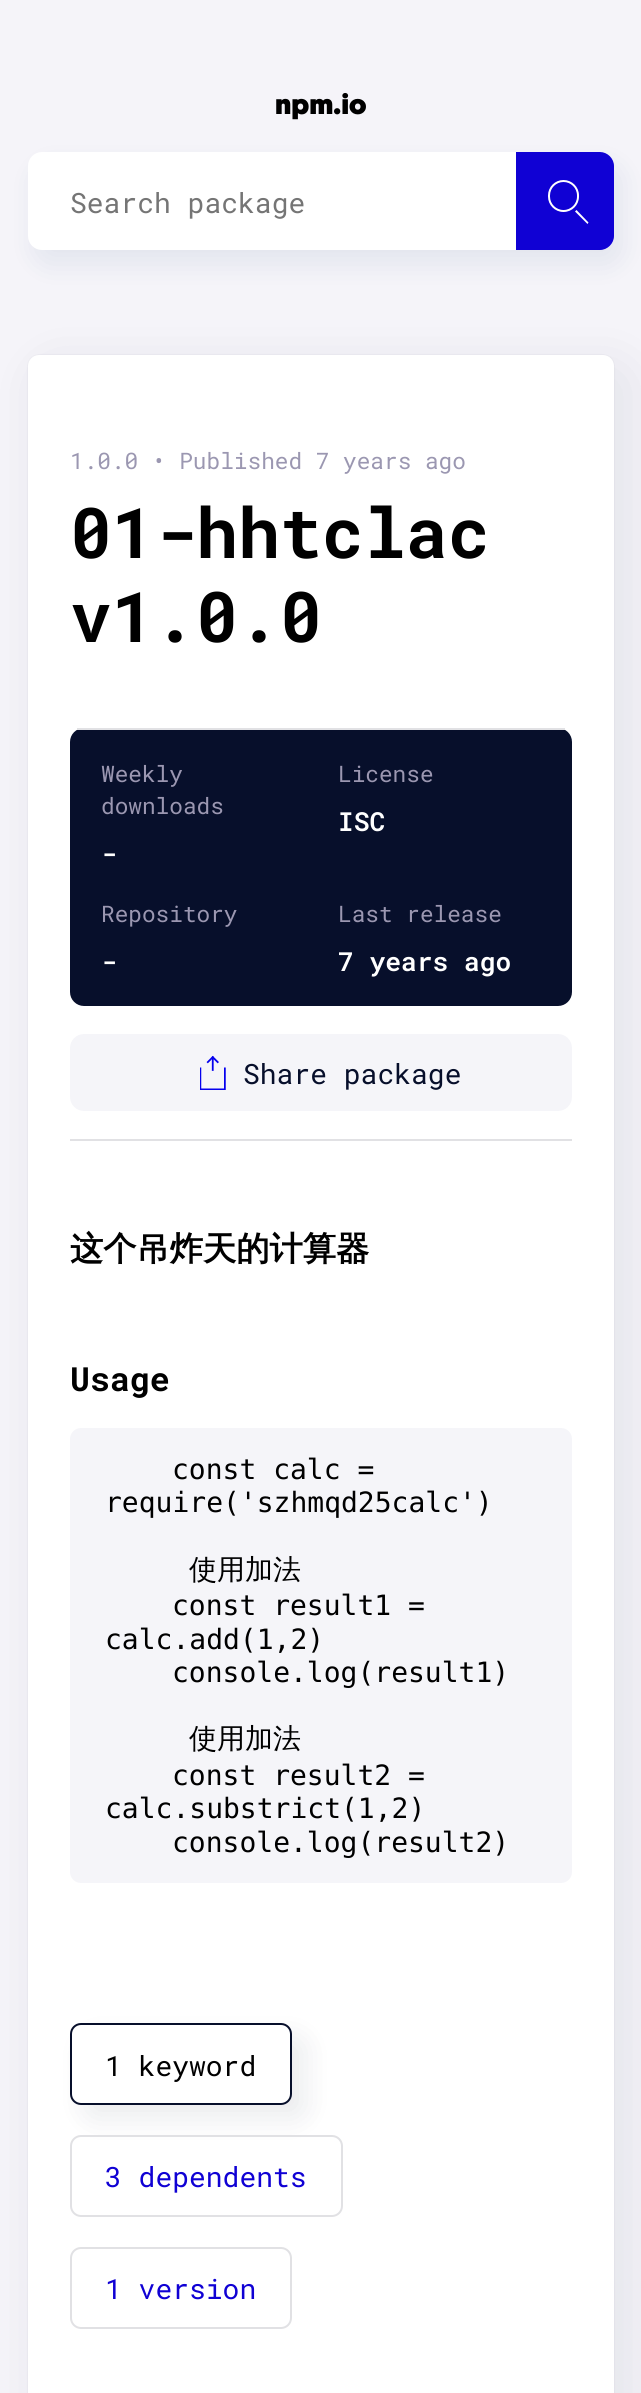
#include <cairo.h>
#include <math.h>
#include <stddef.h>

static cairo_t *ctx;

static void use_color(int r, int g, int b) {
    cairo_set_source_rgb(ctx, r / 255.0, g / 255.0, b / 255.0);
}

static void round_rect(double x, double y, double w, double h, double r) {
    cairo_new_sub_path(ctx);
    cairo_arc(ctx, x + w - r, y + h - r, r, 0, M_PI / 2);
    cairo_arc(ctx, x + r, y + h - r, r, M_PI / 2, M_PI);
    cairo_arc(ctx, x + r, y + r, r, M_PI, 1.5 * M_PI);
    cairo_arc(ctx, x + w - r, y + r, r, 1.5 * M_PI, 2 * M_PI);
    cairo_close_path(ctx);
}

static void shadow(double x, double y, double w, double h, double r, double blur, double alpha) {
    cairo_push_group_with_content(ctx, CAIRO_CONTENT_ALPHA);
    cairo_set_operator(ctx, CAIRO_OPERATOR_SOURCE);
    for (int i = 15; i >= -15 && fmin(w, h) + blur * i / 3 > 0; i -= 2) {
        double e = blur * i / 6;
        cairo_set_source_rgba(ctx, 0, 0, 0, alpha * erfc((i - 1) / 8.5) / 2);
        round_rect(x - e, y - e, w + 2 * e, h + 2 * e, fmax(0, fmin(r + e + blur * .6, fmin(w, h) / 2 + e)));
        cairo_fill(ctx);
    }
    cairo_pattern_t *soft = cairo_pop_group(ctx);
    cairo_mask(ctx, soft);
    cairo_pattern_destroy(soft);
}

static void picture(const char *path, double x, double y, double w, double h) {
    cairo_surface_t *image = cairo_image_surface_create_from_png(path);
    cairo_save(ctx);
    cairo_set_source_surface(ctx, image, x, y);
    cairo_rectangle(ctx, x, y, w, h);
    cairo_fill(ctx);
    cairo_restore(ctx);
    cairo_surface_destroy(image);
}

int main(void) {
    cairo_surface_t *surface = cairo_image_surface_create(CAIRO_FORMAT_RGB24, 641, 2393);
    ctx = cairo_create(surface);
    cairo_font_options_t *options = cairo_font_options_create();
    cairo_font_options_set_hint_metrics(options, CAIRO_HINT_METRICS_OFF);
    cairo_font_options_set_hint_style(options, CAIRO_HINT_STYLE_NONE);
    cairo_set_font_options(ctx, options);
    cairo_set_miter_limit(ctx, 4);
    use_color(245, 244, 249);
    cairo_paint(ctx);
    cairo_select_font_face(ctx, "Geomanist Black", CAIRO_FONT_SLANT_NORMAL, CAIRO_FONT_WEIGHT_NORMAL);
    cairo_set_font_size(ctx, 28);
    use_color(0, 0, 0);
    cairo_move_to(ctx, 275, 114);
    cairo_show_text(ctx, "npm.io");
    use_color(0, 48, 111);
    shadow(35, 166, 586, 98, 14, 14, 0.08);
    use_color(255, 255, 255);
    round_rect(28, 152, 586, 98, 14);
    cairo_fill(ctx);
    cairo_select_font_face(ctx, "Roboto Mono", CAIRO_FONT_SLANT_NORMAL, CAIRO_FONT_WEIGHT_NORMAL);
    use_color(117, 117, 117);
    cairo_move_to(ctx, 70, 213);
    cairo_show_text(ctx, "Search package");
    use_color(16, 1, 212);
    cairo_new_path(ctx);
    cairo_move_to(ctx, 516, 152);
    cairo_line_to(ctx, 600, 152);
    cairo_curve_to(ctx, 607.5, 152, 614, 158.5, 614, 166);
    cairo_line_to(ctx, 614, 236);
    cairo_curve_to(ctx, 614, 243.5, 607.5, 250, 600, 250);
    cairo_line_to(ctx, 516, 250);
    cairo_close_path(ctx);
    cairo_fill(ctx);
    round_rect(549, 181, 29, 30, 14.5);
    use_color(255, 255, 255);
    cairo_stroke(ctx);
    cairo_new_path(ctx);
    cairo_move_to(ctx, 575, 211.5);
    cairo_line_to(ctx, 576.5, 210);
    cairo_line_to(ctx, 588.5, 222.5);
    cairo_line_to(ctx, 587.5, 224);
    cairo_close_path(ctx);
    cairo_fill(ctx);
    use_color(8, 15, 41);
    shadow(28, 355, 586, 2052, 11, 1, 0.08);
    shadow(42, 369, 586, 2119, 11, 28, 0.08);
    use_color(255, 255, 255);
    round_rect(28, 355, 586, 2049, 11);
    cairo_fill(ctx);
    use_color(225, 225, 228);
    cairo_rectangle(ctx, 70, 1139, 502, 2);
    cairo_fill(ctx);
    cairo_set_font_size(ctx, 22.75);
    use_color(155, 151, 177);
    cairo_move_to(ctx, 70, 469);
    cairo_show_text(ctx, "1.0.0 • Published 7 years ago");
    cairo_select_font_face(ctx, "Roboto Mono", CAIRO_FONT_SLANT_NORMAL, CAIRO_FONT_WEIGHT_BOLD);
    cairo_set_font_size(ctx, 70);
    use_color(0, 0, 0);
    cairo_move_to(ctx, 70, 558);
    cairo_show_text(ctx, "01-hhtclac");
    cairo_move_to(ctx, 70, 642);
    cairo_show_text(ctx, "v1.0.0");
    use_color(7, 15, 43);
    round_rect(70, 728, 502, 278, 14);
    cairo_fill(ctx);
    use_color(225, 225, 228);
    cairo_rectangle(ctx, 77, 728, 488, 2);
    cairo_fill(ctx);
    cairo_select_font_face(ctx, "Roboto Mono", CAIRO_FONT_SLANT_NORMAL, CAIRO_FONT_WEIGHT_NORMAL);
    cairo_set_font_size(ctx, 22.75);
    use_color(155, 151, 177);
    cairo_move_to(ctx, 101, 782);
    cairo_show_text(ctx, "Weekly");
    cairo_move_to(ctx, 101, 814);
    cairo_show_text(ctx, "downloads");
    cairo_select_font_face(ctx, "Roboto Mono SemiBold", CAIRO_FONT_SLANT_NORMAL, CAIRO_FONT_WEIGHT_NORMAL);
    cairo_set_font_size(ctx, 26.25);
    use_color(255, 255, 255);
    cairo_move_to(ctx, 101, 863);
    cairo_show_text(ctx, "-");
    cairo_select_font_face(ctx, "Roboto Mono", CAIRO_FONT_SLANT_NORMAL, CAIRO_FONT_WEIGHT_NORMAL);
    cairo_set_font_size(ctx, 22.75);
    use_color(155, 151, 177);
    cairo_move_to(ctx, 338, 782);
    cairo_show_text(ctx, "License");
    cairo_select_font_face(ctx, "Roboto Mono SemiBold", CAIRO_FONT_SLANT_NORMAL, CAIRO_FONT_WEIGHT_NORMAL);
    cairo_set_font_size(ctx, 26.25);
    use_color(255, 255, 255);
    cairo_move_to(ctx, 338, 831);
    cairo_show_text(ctx, "ISC");
    cairo_select_font_face(ctx, "Roboto Mono", CAIRO_FONT_SLANT_NORMAL, CAIRO_FONT_WEIGHT_NORMAL);
    cairo_set_font_size(ctx, 22.75);
    use_color(155, 151, 177);
    cairo_move_to(ctx, 101, 922);
    cairo_show_text(ctx, "Repository");
    cairo_select_font_face(ctx, "Roboto Mono SemiBold", CAIRO_FONT_SLANT_NORMAL, CAIRO_FONT_WEIGHT_NORMAL);
    cairo_set_font_size(ctx, 26.25);
    use_color(255, 255, 255);
    cairo_move_to(ctx, 101, 971);
    cairo_show_text(ctx, "-");
    cairo_select_font_face(ctx, "Roboto Mono", CAIRO_FONT_SLANT_NORMAL, CAIRO_FONT_WEIGHT_NORMAL);
    cairo_set_font_size(ctx, 22.75);
    use_color(155, 151, 177);
    cairo_move_to(ctx, 338, 922);
    cairo_show_text(ctx, "Last release");
    cairo_select_font_face(ctx, "Roboto Mono SemiBold", CAIRO_FONT_SLANT_NORMAL, CAIRO_FONT_WEIGHT_NORMAL);
    cairo_set_font_size(ctx, 26.25);
    use_color(255, 255, 255);
    cairo_move_to(ctx, 338, 971);
    cairo_show_text(ctx, "7 years ago");
    use_color(245, 245, 249);
    round_rect(70, 1034, 502, 77, 14);
    cairo_fill(ctx);
    picture("img1.png", 200, 1055, 26, 35);
    cairo_select_font_face(ctx, "Roboto Mono", CAIRO_FONT_SLANT_NORMAL, CAIRO_FONT_WEIGHT_NORMAL);
    cairo_set_font_size(ctx, 28);
    use_color(7, 15, 43);
    cairo_move_to(ctx, 243, 1084);
    cairo_show_text(ctx, "Share package");
    cairo_select_font_face(ctx, "WenQuanYi Zen Hei", CAIRO_FONT_SLANT_NORMAL, CAIRO_FONT_WEIGHT_BOLD);
    cairo_set_font_size(ctx, 33.25);
    use_color(0, 0, 0);
    cairo_move_to(ctx, 70, 1260);
    cairo_show_text(ctx, "这个吊炸天的计算器");
    cairo_select_font_face(ctx, "Roboto Mono", CAIRO_FONT_SLANT_NORMAL, CAIRO_FONT_WEIGHT_BOLD);
    cairo_move_to(ctx, 70, 1391);
    cairo_show_text(ctx, "Usage");
    use_color(245, 245, 249);
    round_rect(70, 1428, 502, 455, 11);
    cairo_fill(ctx);
    cairo_select_font_face(ctx, "DejaVu Sans Mono", CAIRO_FONT_SLANT_NORMAL, CAIRO_FONT_WEIGHT_NORMAL);
    cairo_set_font_size(ctx, 28);
    use_color(0, 0, 0);
    cairo_move_to(ctx, 172, 1479);
    cairo_show_text(ctx, "const calc =");
    cairo_move_to(ctx, 105, 1512);
    cairo_show_text(ctx, "require('szhmqd25calc')");
    cairo_select_font_face(ctx, "WenQuanYi Zen Hei Medium", CAIRO_FONT_SLANT_NORMAL, CAIRO_FONT_WEIGHT_NORMAL);
    cairo_move_to(ctx, 189, 1579);
    cairo_show_text(ctx, "使用加法");
    cairo_select_font_face(ctx, "DejaVu Sans Mono", CAIRO_FONT_SLANT_NORMAL, CAIRO_FONT_WEIGHT_NORMAL);
    cairo_move_to(ctx, 172, 1615);
    cairo_show_text(ctx, "const result1 =");
    cairo_move_to(ctx, 105, 1649);
    cairo_show_text(ctx, "calc.add(1,2)");
    cairo_move_to(ctx, 172, 1682);
    cairo_show_text(ctx, "console.log(result1)");
    cairo_select_font_face(ctx, "WenQuanYi Zen Hei Medium", CAIRO_FONT_SLANT_NORMAL, CAIRO_FONT_WEIGHT_NORMAL);
    cairo_move_to(ctx, 189, 1748);
    cairo_show_text(ctx, "使用加法");
    cairo_select_font_face(ctx, "DejaVu Sans Mono", CAIRO_FONT_SLANT_NORMAL, CAIRO_FONT_WEIGHT_NORMAL);
    cairo_move_to(ctx, 172, 1785);
    cairo_show_text(ctx, "const result2 =");
    cairo_move_to(ctx, 105, 1818);
    cairo_show_text(ctx, "calc.substrict(1,2)");
    cairo_move_to(ctx, 172, 1852);
    cairo_show_text(ctx, "console.log(result2)");
    cairo_save(ctx);
    cairo_set_fill_rule(ctx, CAIRO_FILL_RULE_EVEN_ODD);
    cairo_new_path(ctx);
    cairo_move_to(ctx, 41, 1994);
    cairo_line_to(ctx, 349, 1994);
    cairo_line_to(ctx, 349, 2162);
    cairo_line_to(ctx, 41, 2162);
    cairo_close_path(ctx);
    cairo_move_to(ctx, 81, 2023);
    cairo_line_to(ctx, 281, 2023);
    cairo_curve_to(ctx, 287, 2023, 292, 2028, 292, 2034);
    cairo_line_to(ctx, 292, 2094);
    cairo_curve_to(ctx, 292, 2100, 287, 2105, 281, 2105);
    cairo_line_to(ctx, 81, 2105);
    cairo_curve_to(ctx, 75, 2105, 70, 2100, 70, 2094);
    cairo_line_to(ctx, 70, 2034);
    cairo_curve_to(ctx, 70, 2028, 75, 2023, 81, 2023);
    cairo_close_path(ctx);
    cairo_clip(ctx);
    use_color(8, 15, 41);
    shadow(84, 2037, 222, 82, 11, 14, 0.08);
    cairo_restore(ctx);
    round_rect(71, 2024, 220, 80, 10);
    use_color(7, 15, 43);
    cairo_stroke(ctx);
    cairo_select_font_face(ctx, "Roboto Mono", CAIRO_FONT_SLANT_NORMAL, CAIRO_FONT_WEIGHT_NORMAL);
    use_color(0, 0, 0);
    cairo_move_to(ctx, 105, 2076);
    cairo_show_text(ctx, "1 keyword");
    round_rect(71, 2136, 271, 80, 10);
    use_color(225, 225, 228);
    cairo_stroke(ctx);
    use_color(16, 1, 212);
    cairo_move_to(ctx, 105, 2187);
    cairo_show_text(ctx, "3 dependents");
    round_rect(71, 2248, 220, 80, 10);
    use_color(225, 225, 228);
    cairo_stroke(ctx);
    use_color(16, 1, 212);
    cairo_move_to(ctx, 105, 2299);
    cairo_show_text(ctx, "1 version");
    cairo_surface_write_to_png(surface, "result.png");
    cairo_font_options_destroy(options);
    cairo_destroy(ctx);
    cairo_surface_destroy(surface);
    return 0;
}
